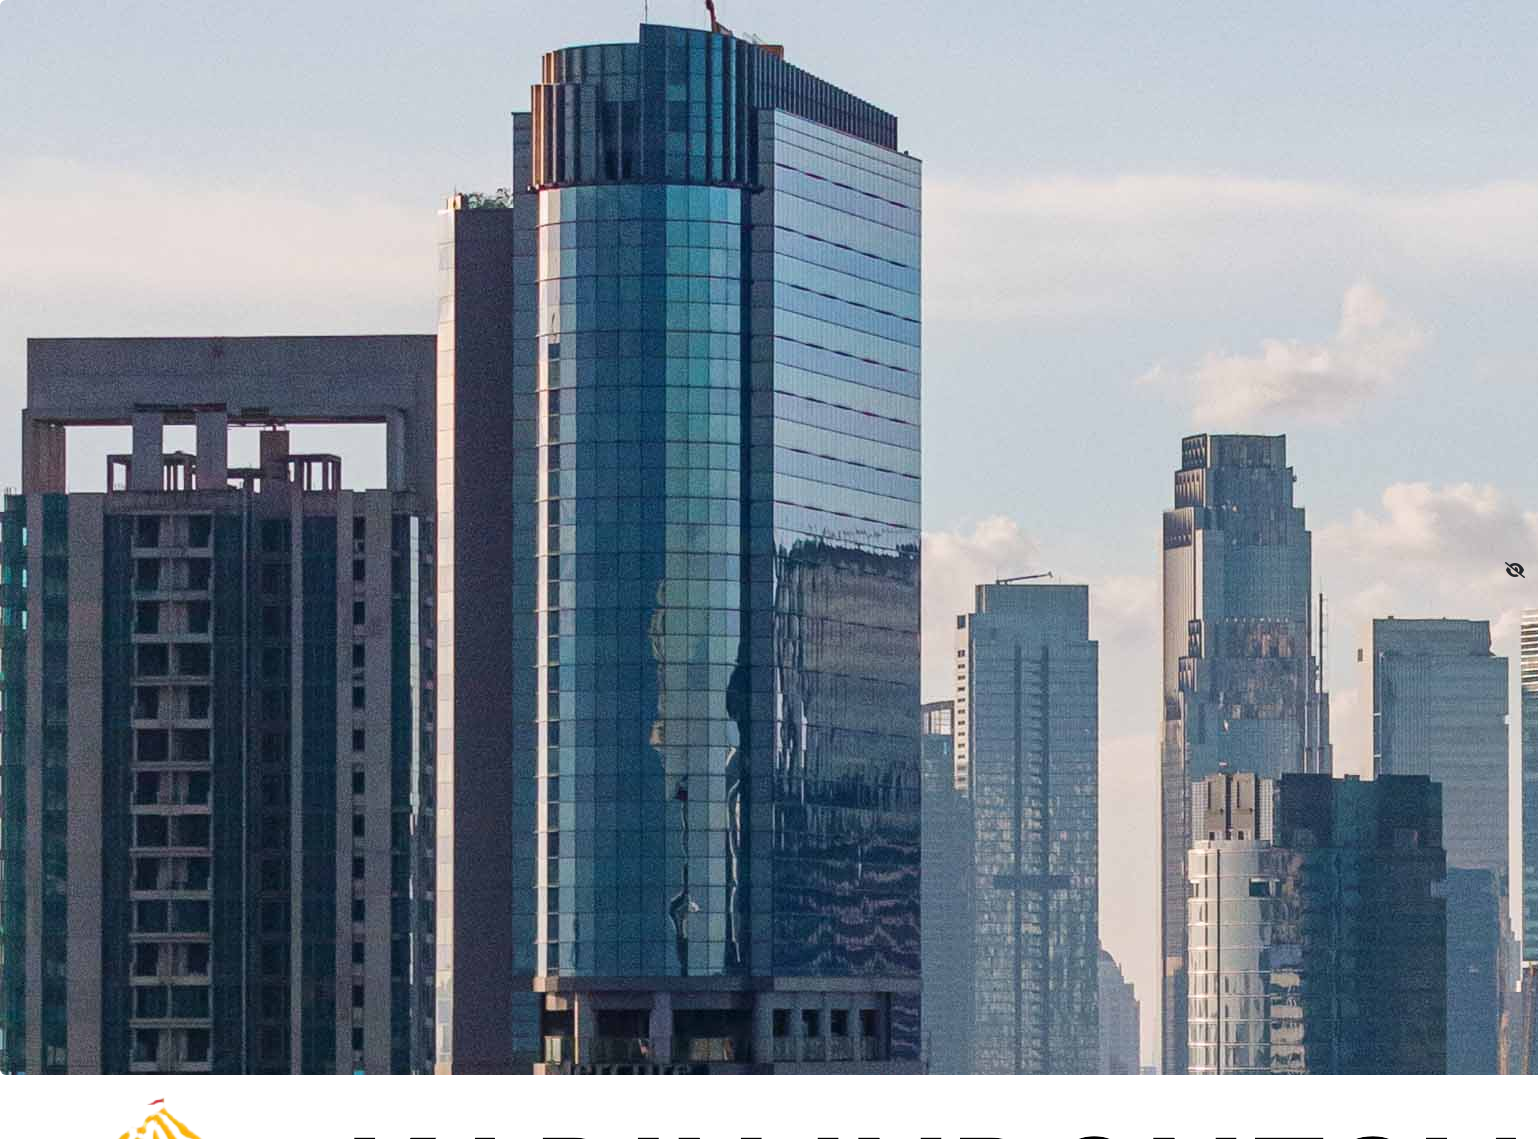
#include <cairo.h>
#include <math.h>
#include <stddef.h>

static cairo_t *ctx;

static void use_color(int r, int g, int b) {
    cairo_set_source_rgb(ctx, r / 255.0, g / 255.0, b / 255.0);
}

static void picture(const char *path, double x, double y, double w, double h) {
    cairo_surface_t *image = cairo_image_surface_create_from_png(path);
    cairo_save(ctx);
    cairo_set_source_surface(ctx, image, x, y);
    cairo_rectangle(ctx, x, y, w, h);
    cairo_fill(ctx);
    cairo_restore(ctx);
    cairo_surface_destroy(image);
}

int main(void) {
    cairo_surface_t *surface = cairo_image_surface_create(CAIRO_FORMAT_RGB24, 1538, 1139);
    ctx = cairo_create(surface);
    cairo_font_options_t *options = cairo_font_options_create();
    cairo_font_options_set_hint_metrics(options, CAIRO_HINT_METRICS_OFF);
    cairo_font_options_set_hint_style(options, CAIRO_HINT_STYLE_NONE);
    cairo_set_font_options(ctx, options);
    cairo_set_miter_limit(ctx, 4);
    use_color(255, 255, 255);
    cairo_paint(ctx);
    picture("img1.png", 0, 0, 1538, 1075);
    picture("img2.png", 1505, 562, 20, 16);
    picture("img3.png", 117, 1097, 1399, 42);
    cairo_surface_write_to_png(surface, "result.png");
    cairo_font_options_destroy(options);
    cairo_destroy(ctx);
    cairo_surface_destroy(surface);
    return 0;
}
